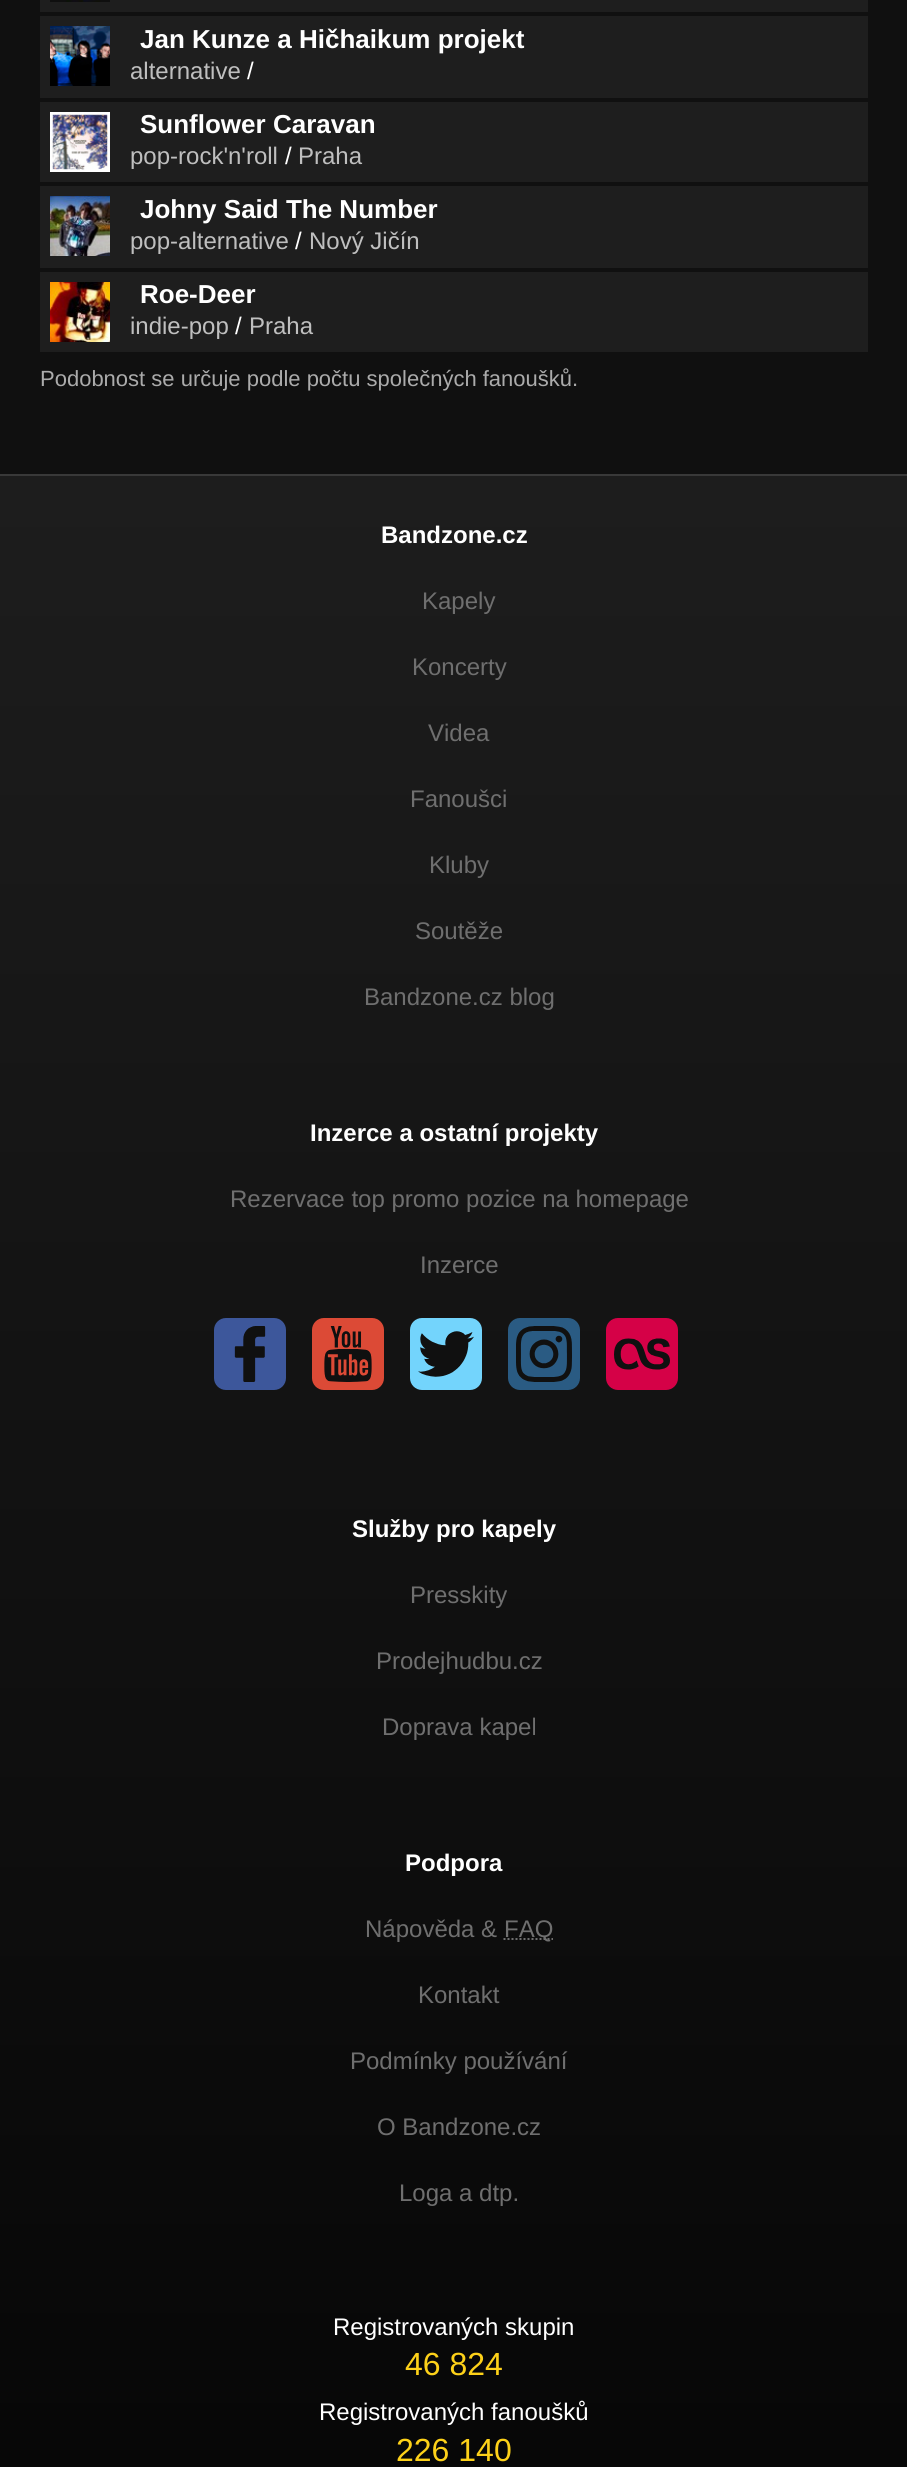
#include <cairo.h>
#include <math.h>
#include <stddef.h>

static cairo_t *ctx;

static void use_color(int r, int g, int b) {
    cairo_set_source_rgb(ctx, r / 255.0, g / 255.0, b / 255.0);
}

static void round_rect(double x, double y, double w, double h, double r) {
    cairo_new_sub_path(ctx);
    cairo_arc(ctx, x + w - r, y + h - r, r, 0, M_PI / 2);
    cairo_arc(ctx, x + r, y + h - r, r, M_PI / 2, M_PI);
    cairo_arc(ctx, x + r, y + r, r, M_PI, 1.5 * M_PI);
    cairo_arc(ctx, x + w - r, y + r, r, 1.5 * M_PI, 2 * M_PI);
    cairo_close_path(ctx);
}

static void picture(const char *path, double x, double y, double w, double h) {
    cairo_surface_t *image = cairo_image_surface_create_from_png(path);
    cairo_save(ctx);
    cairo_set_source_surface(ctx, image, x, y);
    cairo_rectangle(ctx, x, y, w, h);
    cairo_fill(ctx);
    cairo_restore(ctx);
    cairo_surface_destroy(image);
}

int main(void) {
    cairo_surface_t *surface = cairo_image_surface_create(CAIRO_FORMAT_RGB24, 907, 2467);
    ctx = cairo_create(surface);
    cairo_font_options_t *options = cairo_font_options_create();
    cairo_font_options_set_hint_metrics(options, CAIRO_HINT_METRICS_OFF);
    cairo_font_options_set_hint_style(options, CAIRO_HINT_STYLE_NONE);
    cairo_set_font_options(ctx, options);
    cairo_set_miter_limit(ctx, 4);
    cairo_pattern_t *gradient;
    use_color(16, 16, 16);
    cairo_paint(ctx);
    use_color(30, 30, 30);
    cairo_rectangle(ctx, 40, 0, 828, 12);
    cairo_fill(ctx);
    picture("img1.png", 50, 0, 60, 2);
    cairo_rectangle(ctx, 40, 16, 828, 82);
    cairo_fill(ctx);
    picture("img2.png", 50, 26, 60, 60);
    cairo_select_font_face(ctx, "Liberation Sans", CAIRO_FONT_SLANT_NORMAL, CAIRO_FONT_WEIGHT_BOLD);
    cairo_set_font_size(ctx, 26);
    use_color(255, 255, 255);
    cairo_move_to(ctx, 140, 48);
    cairo_show_text(ctx, "Jan Kunze a Hičhaikum projekt");
    cairo_select_font_face(ctx, "Liberation Sans", CAIRO_FONT_SLANT_NORMAL, CAIRO_FONT_WEIGHT_NORMAL);
    cairo_set_font_size(ctx, 24);
    use_color(191, 191, 191);
    cairo_move_to(ctx, 130, 79);
    cairo_show_text(ctx, "alternative");
    use_color(255, 255, 255);
    cairo_move_to(ctx, 247, 79);
    cairo_show_text(ctx, "/");
    use_color(30, 30, 30);
    cairo_rectangle(ctx, 40, 102, 828, 80);
    cairo_fill(ctx);
    picture("img3.png", 50, 112, 60, 60);
    cairo_select_font_face(ctx, "Liberation Sans", CAIRO_FONT_SLANT_NORMAL, CAIRO_FONT_WEIGHT_BOLD);
    cairo_set_font_size(ctx, 26);
    use_color(255, 255, 255);
    cairo_move_to(ctx, 140, 133);
    cairo_show_text(ctx, "Sunflower Caravan");
    cairo_select_font_face(ctx, "Liberation Sans", CAIRO_FONT_SLANT_NORMAL, CAIRO_FONT_WEIGHT_NORMAL);
    cairo_set_font_size(ctx, 24);
    use_color(191, 191, 191);
    cairo_move_to(ctx, 130, 164);
    cairo_show_text(ctx, "pop-rock'n'roll");
    use_color(255, 255, 255);
    cairo_move_to(ctx, 285, 164);
    cairo_show_text(ctx, "/");
    use_color(191, 191, 191);
    cairo_move_to(ctx, 298, 164);
    cairo_show_text(ctx, "Praha");
    use_color(30, 30, 30);
    cairo_rectangle(ctx, 40, 186, 828, 82);
    cairo_fill(ctx);
    picture("img4.png", 50, 196, 60, 60);
    cairo_select_font_face(ctx, "Liberation Sans", CAIRO_FONT_SLANT_NORMAL, CAIRO_FONT_WEIGHT_BOLD);
    cairo_set_font_size(ctx, 26);
    use_color(255, 255, 255);
    cairo_move_to(ctx, 140, 218);
    cairo_show_text(ctx, "Johny Said The Number");
    cairo_select_font_face(ctx, "Liberation Sans", CAIRO_FONT_SLANT_NORMAL, CAIRO_FONT_WEIGHT_NORMAL);
    cairo_set_font_size(ctx, 24);
    use_color(191, 191, 191);
    cairo_move_to(ctx, 130, 249);
    cairo_show_text(ctx, "pop-alternative");
    use_color(255, 255, 255);
    cairo_move_to(ctx, 295, 249);
    cairo_show_text(ctx, "/");
    use_color(191, 191, 191);
    cairo_move_to(ctx, 309, 249);
    cairo_show_text(ctx, "Nový Jičín");
    use_color(30, 30, 30);
    cairo_rectangle(ctx, 40, 272, 828, 80);
    cairo_fill(ctx);
    picture("img5.png", 50, 282, 60, 60);
    cairo_select_font_face(ctx, "Liberation Sans", CAIRO_FONT_SLANT_NORMAL, CAIRO_FONT_WEIGHT_BOLD);
    cairo_set_font_size(ctx, 26);
    use_color(255, 255, 255);
    cairo_move_to(ctx, 140, 303);
    cairo_show_text(ctx, "Roe-Deer");
    cairo_select_font_face(ctx, "Liberation Sans", CAIRO_FONT_SLANT_NORMAL, CAIRO_FONT_WEIGHT_NORMAL);
    cairo_set_font_size(ctx, 24);
    use_color(191, 191, 191);
    cairo_move_to(ctx, 130, 334);
    cairo_show_text(ctx, "indie-pop");
    use_color(255, 255, 255);
    cairo_move_to(ctx, 235, 334);
    cairo_show_text(ctx, "/");
    use_color(191, 191, 191);
    cairo_move_to(ctx, 249, 334);
    cairo_show_text(ctx, "Praha");
    cairo_set_font_size(ctx, 22);
    use_color(171, 171, 171);
    cairo_move_to(ctx, 40, 386);
    cairo_show_text(ctx, "Podobnost se určuje podle počtu společných fanoušků.");
    gradient = cairo_pattern_create_linear(454, 476, 454, 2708);
    cairo_pattern_add_color_stop_rgba(gradient, 0, 0.114, 0.114, 0.114, 1);
    cairo_pattern_add_color_stop_rgba(gradient, 1, 0.016, 0.016, 0.016, 1);
    cairo_set_source(ctx, gradient);
    cairo_pattern_destroy(gradient);
    cairo_rectangle(ctx, 0, 476, 907, 1991);
    cairo_fill(ctx);
    use_color(57, 57, 57);
    cairo_rectangle(ctx, 0, 474, 907, 2);
    cairo_fill(ctx);
    cairo_select_font_face(ctx, "Liberation Sans", CAIRO_FONT_SLANT_NORMAL, CAIRO_FONT_WEIGHT_BOLD);
    cairo_set_font_size(ctx, 24);
    use_color(255, 255, 255);
    cairo_move_to(ctx, 381, 543);
    cairo_show_text(ctx, "Bandzone.cz");
    cairo_select_font_face(ctx, "Liberation Sans", CAIRO_FONT_SLANT_NORMAL, CAIRO_FONT_WEIGHT_NORMAL);
    use_color(111, 111, 111);
    cairo_move_to(ctx, 422, 609);
    cairo_show_text(ctx, "Kapely");
    cairo_move_to(ctx, 412, 675);
    cairo_show_text(ctx, "Koncerty");
    cairo_move_to(ctx, 428, 741);
    cairo_show_text(ctx, "Videa");
    cairo_move_to(ctx, 410, 807);
    cairo_show_text(ctx, "Fanoušci");
    cairo_move_to(ctx, 429, 873);
    cairo_show_text(ctx, "Kluby");
    cairo_move_to(ctx, 415, 939);
    cairo_show_text(ctx, "Soutěže");
    cairo_move_to(ctx, 364, 1005);
    cairo_show_text(ctx, "Bandzone.cz blog");
    cairo_select_font_face(ctx, "Liberation Sans", CAIRO_FONT_SLANT_NORMAL, CAIRO_FONT_WEIGHT_BOLD);
    use_color(255, 255, 255);
    cairo_move_to(ctx, 310, 1141);
    cairo_show_text(ctx, "Inzerce a ostatní projekty");
    cairo_select_font_face(ctx, "Liberation Sans", CAIRO_FONT_SLANT_NORMAL, CAIRO_FONT_WEIGHT_NORMAL);
    use_color(111, 111, 111);
    cairo_move_to(ctx, 230, 1207);
    cairo_show_text(ctx, "Rezervace top promo pozice na homepage");
    cairo_move_to(ctx, 420, 1273);
    cairo_show_text(ctx, "Inzerce");
    use_color(61, 87, 155);
    round_rect(214, 1318, 72, 72, 12);
    cairo_fill(ctx);
    picture("img6.png", 234, 1326, 32, 56);
    use_color(220, 74, 54);
    round_rect(312, 1318, 72, 72, 12);
    cairo_fill(ctx);
    picture("img7.png", 324, 1326, 48, 56);
    use_color(115, 212, 252);
    round_rect(410, 1318, 72, 72, 12);
    cairo_fill(ctx);
    picture("img8.png", 418, 1331, 56, 46);
    use_color(42, 91, 131);
    round_rect(508, 1318, 72, 72, 12);
    cairo_fill(ctx);
    picture("img9.png", 516, 1326, 56, 56);
    use_color(213, 1, 71);
    round_rect(606, 1318, 72, 72, 12);
    cairo_fill(ctx);
    picture("img10.png", 614, 1338, 56, 32);
    cairo_select_font_face(ctx, "Liberation Sans", CAIRO_FONT_SLANT_NORMAL, CAIRO_FONT_WEIGHT_BOLD);
    use_color(255, 255, 255);
    cairo_move_to(ctx, 352, 1537);
    cairo_show_text(ctx, "Služby pro kapely");
    cairo_select_font_face(ctx, "Liberation Sans", CAIRO_FONT_SLANT_NORMAL, CAIRO_FONT_WEIGHT_NORMAL);
    use_color(111, 111, 111);
    cairo_move_to(ctx, 410, 1603);
    cairo_show_text(ctx, "Presskity");
    cairo_move_to(ctx, 376, 1669);
    cairo_show_text(ctx, "Prodejhudbu.cz");
    cairo_move_to(ctx, 382, 1735);
    cairo_show_text(ctx, "Doprava kapel");
    cairo_select_font_face(ctx, "Liberation Sans", CAIRO_FONT_SLANT_NORMAL, CAIRO_FONT_WEIGHT_BOLD);
    use_color(255, 255, 255);
    cairo_move_to(ctx, 405, 1871);
    cairo_show_text(ctx, "Podpora");
    cairo_select_font_face(ctx, "Liberation Sans", CAIRO_FONT_SLANT_NORMAL, CAIRO_FONT_WEIGHT_NORMAL);
    use_color(111, 111, 111);
    cairo_move_to(ctx, 365, 1937);
    cairo_show_text(ctx, "Nápověda &");
    cairo_new_path(ctx);
    cairo_move_to(ctx, 503.5, 1939);
    cairo_line_to(ctx, 553, 1939);
    cairo_set_dash(ctx, (double[]){2, 2}, 2, 0);
    cairo_stroke(ctx);
    cairo_move_to(ctx, 504, 1937);
    cairo_show_text(ctx, "FAQ");
    cairo_move_to(ctx, 418, 2003);
    cairo_show_text(ctx, "Kontakt");
    cairo_move_to(ctx, 350, 2069);
    cairo_show_text(ctx, "Podmínky používání");
    cairo_move_to(ctx, 377, 2135);
    cairo_show_text(ctx, "O Bandzone.cz");
    cairo_move_to(ctx, 399, 2201);
    cairo_show_text(ctx, "Loga a dtp.");
    use_color(255, 255, 255);
    cairo_move_to(ctx, 333, 2335);
    cairo_show_text(ctx, "Registrovaných skupin");
    cairo_set_font_size(ctx, 32);
    use_color(253, 209, 25);
    cairo_move_to(ctx, 405, 2375);
    cairo_show_text(ctx, "46 824");
    cairo_set_font_size(ctx, 24);
    use_color(255, 255, 255);
    cairo_move_to(ctx, 319, 2420);
    cairo_show_text(ctx, "Registrovaných fanoušků");
    cairo_set_font_size(ctx, 32);
    use_color(253, 209, 25);
    cairo_move_to(ctx, 396, 2461);
    cairo_show_text(ctx, "226 140");
    cairo_surface_write_to_png(surface, "result.png");
    cairo_font_options_destroy(options);
    cairo_destroy(ctx);
    cairo_surface_destroy(surface);
    return 0;
}
